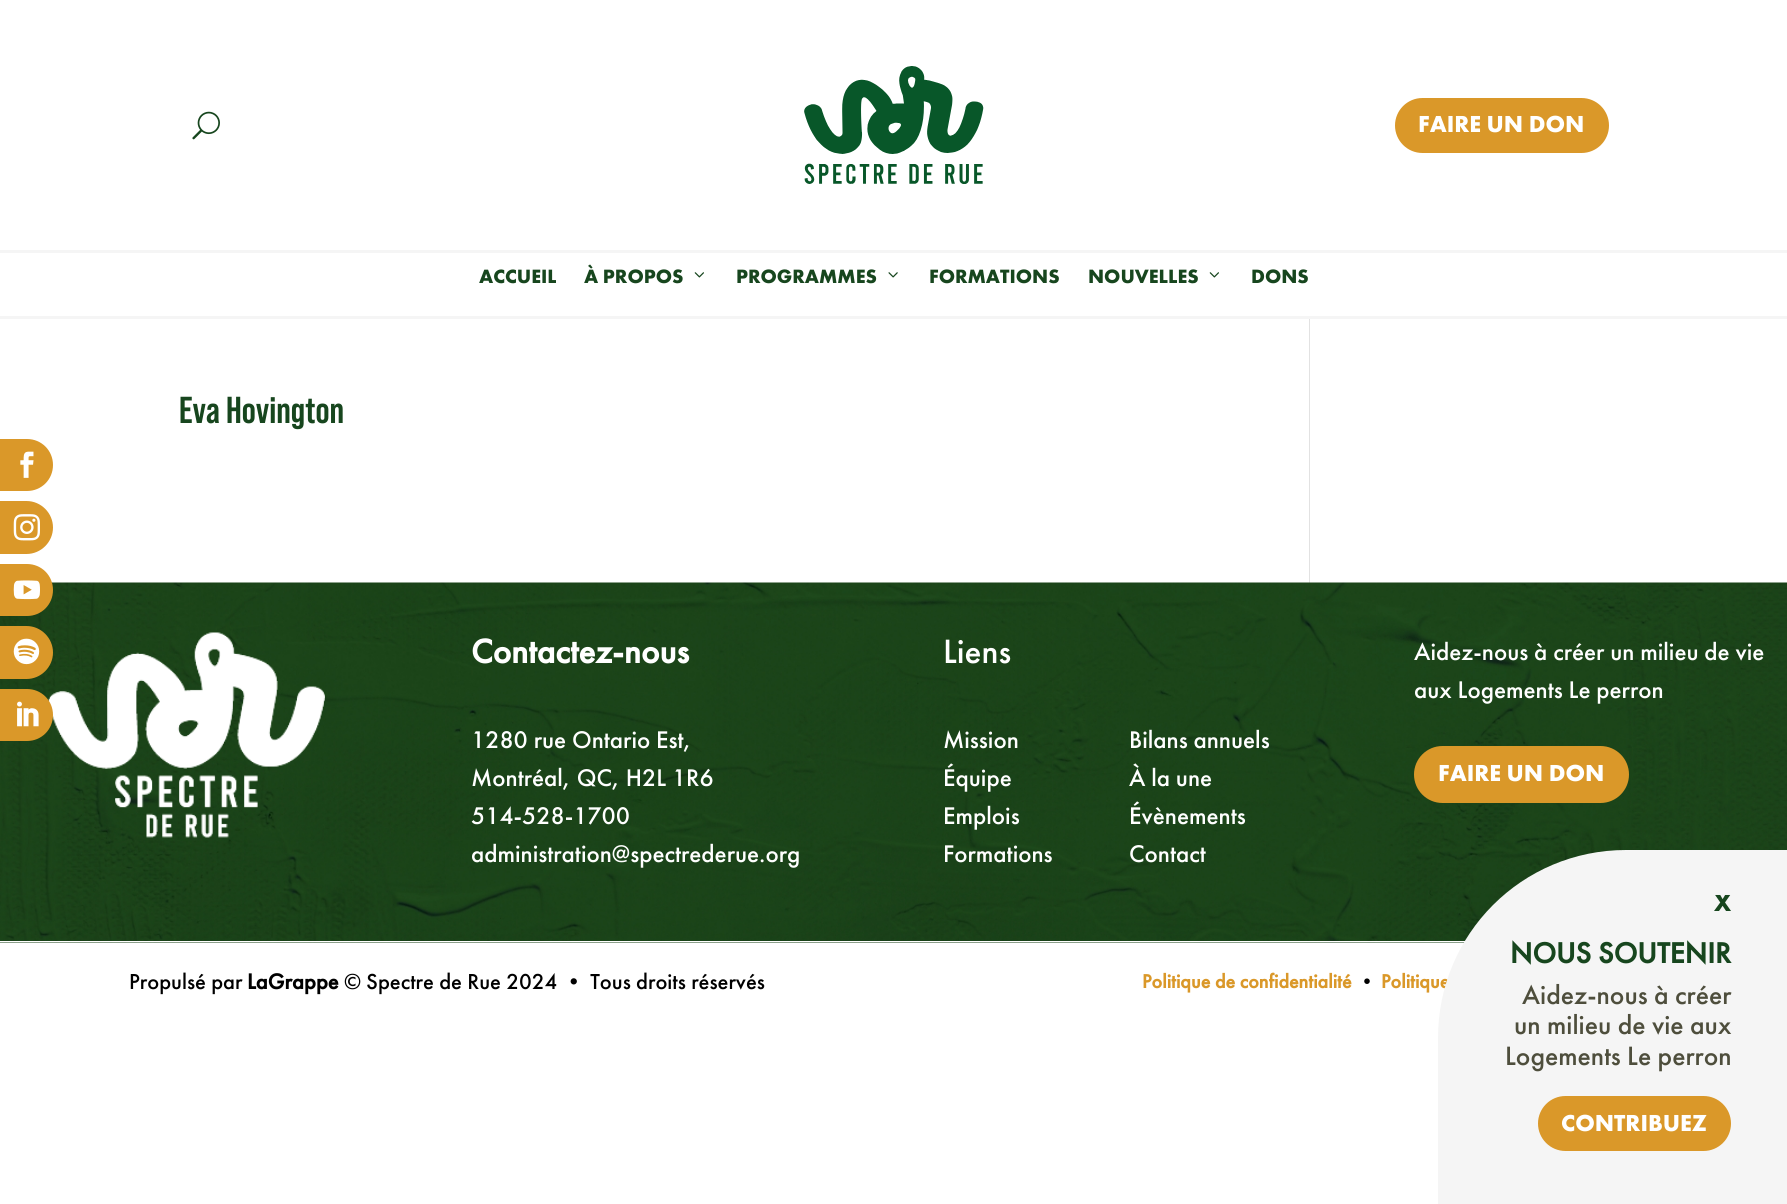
#include <cairo.h>
#include <math.h>
#include <stddef.h>

static cairo_t *ctx;

static void use_color(int r, int g, int b) {
    cairo_set_source_rgb(ctx, r / 255.0, g / 255.0, b / 255.0);
}

static void round_rect(double x, double y, double w, double h, double r) {
    cairo_new_sub_path(ctx);
    cairo_arc(ctx, x + w - r, y + h - r, r, 0, M_PI / 2);
    cairo_arc(ctx, x + r, y + h - r, r, M_PI / 2, M_PI);
    cairo_arc(ctx, x + r, y + r, r, M_PI, 1.5 * M_PI);
    cairo_arc(ctx, x + w - r, y + r, r, 1.5 * M_PI, 2 * M_PI);
    cairo_close_path(ctx);
}

static void picture(const char *path, double x, double y, double w, double h) {
    cairo_surface_t *image = cairo_image_surface_create_from_png(path);
    cairo_save(ctx);
    cairo_set_source_surface(ctx, image, x, y);
    cairo_rectangle(ctx, x, y, w, h);
    cairo_fill(ctx);
    cairo_restore(ctx);
    cairo_surface_destroy(image);
}

int main(void) {
    cairo_surface_t *surface = cairo_image_surface_create(CAIRO_FORMAT_RGB24, 1787, 1204);
    ctx = cairo_create(surface);
    cairo_font_options_t *options = cairo_font_options_create();
    cairo_font_options_set_hint_metrics(options, CAIRO_HINT_METRICS_OFF);
    cairo_font_options_set_hint_style(options, CAIRO_HINT_STYLE_NONE);
    cairo_set_font_options(ctx, options);
    cairo_set_miter_limit(ctx, 4);
    use_color(255, 255, 255);
    cairo_paint(ctx);
    picture("img1.png", 192, 111, 28, 29);
    picture("img2.png", 804, 66, 180, 118);
    use_color(218, 152, 41);
    round_rect(1395, 98, 214, 55, 27.5);
    cairo_fill(ctx);
    cairo_select_font_face(ctx, "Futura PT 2", CAIRO_FONT_SLANT_NORMAL, CAIRO_FONT_WEIGHT_BOLD);
    cairo_set_font_size(ctx, 24);
    use_color(255, 255, 255);
    cairo_move_to(ctx, 1418, 132);
    cairo_show_text(ctx, "FAIRE UN DON");
    use_color(245, 245, 245);
    cairo_rectangle(ctx, 0, 250, 1787, 3);
    cairo_fill(ctx);
    cairo_rectangle(ctx, 0, 316, 1787, 3);
    cairo_fill(ctx);
    cairo_save(ctx);
    cairo_rectangle(ctx, 479, 256, 77, 57);
    cairo_clip(ctx);
    cairo_set_font_size(ctx, 20);
    use_color(23, 70, 30);
    cairo_move_to(ctx, 479, 283);
    cairo_show_text(ctx, "ACCUEIL");
    cairo_restore(ctx);
    cairo_set_font_size(ctx, 20);
    use_color(23, 70, 30);
    cairo_move_to(ctx, 584, 283);
    cairo_show_text(ctx, "À PROPOS");
    picture("img3.png", 694, 272, 10, 6);
    cairo_move_to(ctx, 736, 283);
    cairo_show_text(ctx, "PROGRAMMES");
    picture("img4.png", 888, 272, 10, 6);
    cairo_move_to(ctx, 929, 283);
    cairo_show_text(ctx, "FORMATIONS");
    cairo_move_to(ctx, 1088, 283);
    cairo_show_text(ctx, "NOUVELLES");
    picture("img3.png", 1209, 272, 10, 6);
    cairo_move_to(ctx, 1251, 283);
    cairo_show_text(ctx, "DONS");
    use_color(218, 152, 41);
    cairo_new_path(ctx);
    cairo_move_to(ctx, 0, 439);
    cairo_line_to(ctx, 27, 439);
    cairo_curve_to(ctx, 41.5, 439, 53, 450.5, 53, 465);
    cairo_curve_to(ctx, 53, 479.5, 41.5, 491, 27, 491);
    cairo_line_to(ctx, 0, 491);
    cairo_close_path(ctx);
    cairo_fill(ctx);
    picture("img5.png", 20, 451, 14, 27);
    cairo_new_path(ctx);
    cairo_move_to(ctx, 0, 501);
    cairo_line_to(ctx, 26.5, 501);
    cairo_curve_to(ctx, 41, 501, 53, 513, 53, 527.5);
    cairo_curve_to(ctx, 53, 542, 41, 554, 26.5, 554);
    cairo_line_to(ctx, 0, 554);
    cairo_close_path(ctx);
    cairo_fill(ctx);
    picture("img6.png", 13, 514, 27, 27);
    use_color(226, 226, 226);
    cairo_rectangle(ctx, 1309, 319, 1, 264);
    cairo_fill(ctx);
    picture("img10.png", 0, 582, 1787, 361);
    use_color(218, 152, 41);
    cairo_new_path(ctx);
    cairo_move_to(ctx, 0, 564);
    cairo_line_to(ctx, 27, 564);
    cairo_curve_to(ctx, 41.5, 564, 53, 575.5, 53, 590);
    cairo_curve_to(ctx, 53, 604.5, 41.5, 616, 27, 616);
    cairo_line_to(ctx, 0, 616);
    cairo_close_path(ctx);
    cairo_fill(ctx);
    picture("img7.png", 13, 580, 27, 20);
    picture("img11.png", 48, 632, 277, 206);
    cairo_new_path(ctx);
    cairo_move_to(ctx, 0, 626);
    cairo_line_to(ctx, 26.5, 626);
    cairo_curve_to(ctx, 41, 626, 53, 638, 53, 652.5);
    cairo_curve_to(ctx, 53, 667, 41, 679, 26.5, 679);
    cairo_line_to(ctx, 0, 679);
    cairo_close_path(ctx);
    cairo_fill(ctx);
    picture("img8.png", 13, 638, 27, 27);
    cairo_new_path(ctx);
    cairo_move_to(ctx, 0, 689);
    cairo_line_to(ctx, 27, 689);
    cairo_curve_to(ctx, 41.5, 689, 53, 700.5, 53, 715);
    cairo_curve_to(ctx, 53, 729.5, 41.5, 741, 27, 741);
    cairo_line_to(ctx, 0, 741);
    cairo_close_path(ctx);
    cairo_fill(ctx);
    picture("img9.png", 17, 701, 22, 26);
    cairo_select_font_face(ctx, "Bebas Neue", CAIRO_FONT_SLANT_NORMAL, CAIRO_FONT_WEIGHT_BOLD);
    cairo_set_font_size(ctx, 37.5);
    use_color(23, 70, 30);
    cairo_move_to(ctx, 179, 423);
    cairo_show_text(ctx, "Eva Hovington");
    use_color(255, 255, 255);
    cairo_rectangle(ctx, 0, 941, 1465, 1);
    cairo_fill(ctx);
    cairo_select_font_face(ctx, "Futura PT", CAIRO_FONT_SLANT_NORMAL, CAIRO_FONT_WEIGHT_BOLD);
    cairo_set_font_size(ctx, 35);
    cairo_move_to(ctx, 471, 663);
    cairo_show_text(ctx, "Contactez-nous");
    cairo_select_font_face(ctx, "Futura PT Medium", CAIRO_FONT_SLANT_NORMAL, CAIRO_FONT_WEIGHT_NORMAL);
    cairo_set_font_size(ctx, 25);
    cairo_move_to(ctx, 471, 748);
    cairo_show_text(ctx, "1280 rue Ontario Est,");
    cairo_move_to(ctx, 471, 786);
    cairo_show_text(ctx, "Montréal, QC, H2L 1R6");
    cairo_move_to(ctx, 471, 824);
    cairo_show_text(ctx, "514-528-1700");
    cairo_move_to(ctx, 471, 862);
    cairo_show_text(ctx, "administration@spectrederue.org");
    cairo_set_font_size(ctx, 35);
    cairo_move_to(ctx, 943, 663);
    cairo_show_text(ctx, "Liens");
    cairo_set_font_size(ctx, 25);
    cairo_move_to(ctx, 943, 748);
    cairo_show_text(ctx, "Mission");
    cairo_move_to(ctx, 943, 786);
    cairo_show_text(ctx, "Équipe");
    cairo_move_to(ctx, 943, 824);
    cairo_show_text(ctx, "Emplois");
    cairo_move_to(ctx, 943, 862);
    cairo_show_text(ctx, "Formations");
    cairo_move_to(ctx, 1129, 748);
    cairo_show_text(ctx, "Bilans annuels");
    cairo_move_to(ctx, 1129, 786);
    cairo_show_text(ctx, "À la une");
    cairo_move_to(ctx, 1129, 824);
    cairo_show_text(ctx, "Évènements");
    cairo_move_to(ctx, 1129, 862);
    cairo_show_text(ctx, "Contact");
    cairo_move_to(ctx, 1414, 660);
    cairo_show_text(ctx, "Aidez-nous à créer un milieu de vie");
    cairo_move_to(ctx, 1414, 698);
    cairo_show_text(ctx, "aux Logements Le perron");
    use_color(218, 152, 41);
    round_rect(1414, 746, 215, 57, 28.5);
    cairo_fill(ctx);
    cairo_select_font_face(ctx, "Futura PT 2", CAIRO_FONT_SLANT_NORMAL, CAIRO_FONT_WEIGHT_BOLD);
    cairo_set_font_size(ctx, 24);
    use_color(255, 255, 255);
    cairo_move_to(ctx, 1438, 781);
    cairo_show_text(ctx, "FAIRE UN DON");
    cairo_select_font_face(ctx, "Futura PT Medium", CAIRO_FONT_SLANT_NORMAL, CAIRO_FONT_WEIGHT_NORMAL);
    cairo_set_font_size(ctx, 22.5);
    use_color(0, 0, 0);
    cairo_move_to(ctx, 129, 989);
    cairo_show_text(ctx, "Propulsé par");
    cairo_select_font_face(ctx, "Futura PT", CAIRO_FONT_SLANT_NORMAL, CAIRO_FONT_WEIGHT_BOLD);
    cairo_move_to(ctx, 247, 989);
    cairo_show_text(ctx, "LaGrappe");
    cairo_select_font_face(ctx, "Futura PT Medium", CAIRO_FONT_SLANT_NORMAL, CAIRO_FONT_WEIGHT_NORMAL);
    cairo_move_to(ctx, 344, 989);
    cairo_show_text(ctx, "© Spectre de Rue 2024 • Tous droits réservés");
    cairo_select_font_face(ctx, "Futura PT", CAIRO_FONT_SLANT_NORMAL, CAIRO_FONT_WEIGHT_BOLD);
    cairo_set_font_size(ctx, 20);
    use_color(218, 152, 41);
    cairo_move_to(ctx, 1142, 988);
    cairo_show_text(ctx, "Politique de confidentialité");
    cairo_select_font_face(ctx, "Futura PT Medium", CAIRO_FONT_SLANT_NORMAL, CAIRO_FONT_WEIGHT_NORMAL);
    use_color(0, 0, 0);
    cairo_move_to(ctx, 1357, 988);
    cairo_show_text(ctx, "•");
    cairo_select_font_face(ctx, "Futura PT", CAIRO_FONT_SLANT_NORMAL, CAIRO_FONT_WEIGHT_BOLD);
    use_color(218, 152, 41);
    cairo_move_to(ctx, 1381, 988);
    cairo_show_text(ctx, "Politique");
    use_color(245, 245, 245);
    cairo_new_path(ctx);
    cairo_move_to(ctx, 1626, 850);
    cairo_line_to(ctx, 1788, 850);
    cairo_line_to(ctx, 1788, 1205);
    cairo_line_to(ctx, 1438, 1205);
    cairo_line_to(ctx, 1438, 1038);
    cairo_curve_to(ctx, 1438, 934, 1522, 850, 1626, 850);
    cairo_close_path(ctx);
    cairo_fill(ctx);
    cairo_select_font_face(ctx, "Futura PT 2", CAIRO_FONT_SLANT_NORMAL, CAIRO_FONT_WEIGHT_BOLD);
    cairo_set_font_size(ctx, 24);
    use_color(23, 70, 30);
    cairo_move_to(ctx, 1714, 911);
    cairo_show_text(ctx, "X");
    cairo_select_font_face(ctx, "Futura PT", CAIRO_FONT_SLANT_NORMAL, CAIRO_FONT_WEIGHT_BOLD);
    cairo_set_font_size(ctx, 30);
    cairo_move_to(ctx, 1510, 963);
    cairo_show_text(ctx, "NOUS SOUTENIR");
    cairo_select_font_face(ctx, "Futura PT Medium", CAIRO_FONT_SLANT_NORMAL, CAIRO_FONT_WEIGHT_NORMAL);
    cairo_set_font_size(ctx, 27.5);
    use_color(78, 78, 60);
    cairo_move_to(ctx, 1522, 1004);
    cairo_show_text(ctx, "Aidez-nous à créer");
    cairo_move_to(ctx, 1514, 1034);
    cairo_show_text(ctx, "un milieu de vie aux");
    cairo_move_to(ctx, 1505, 1065);
    cairo_show_text(ctx, "Logements Le perron");
    use_color(218, 152, 41);
    round_rect(1538, 1096, 193, 55, 27.5);
    cairo_fill(ctx);
    cairo_select_font_face(ctx, "Futura PT 2", CAIRO_FONT_SLANT_NORMAL, CAIRO_FONT_WEIGHT_BOLD);
    cairo_set_font_size(ctx, 24);
    use_color(255, 255, 255);
    cairo_move_to(ctx, 1561, 1131);
    cairo_show_text(ctx, "CONTRIBUEZ");
    cairo_surface_write_to_png(surface, "result.png");
    cairo_font_options_destroy(options);
    cairo_destroy(ctx);
    cairo_surface_destroy(surface);
    return 0;
}
